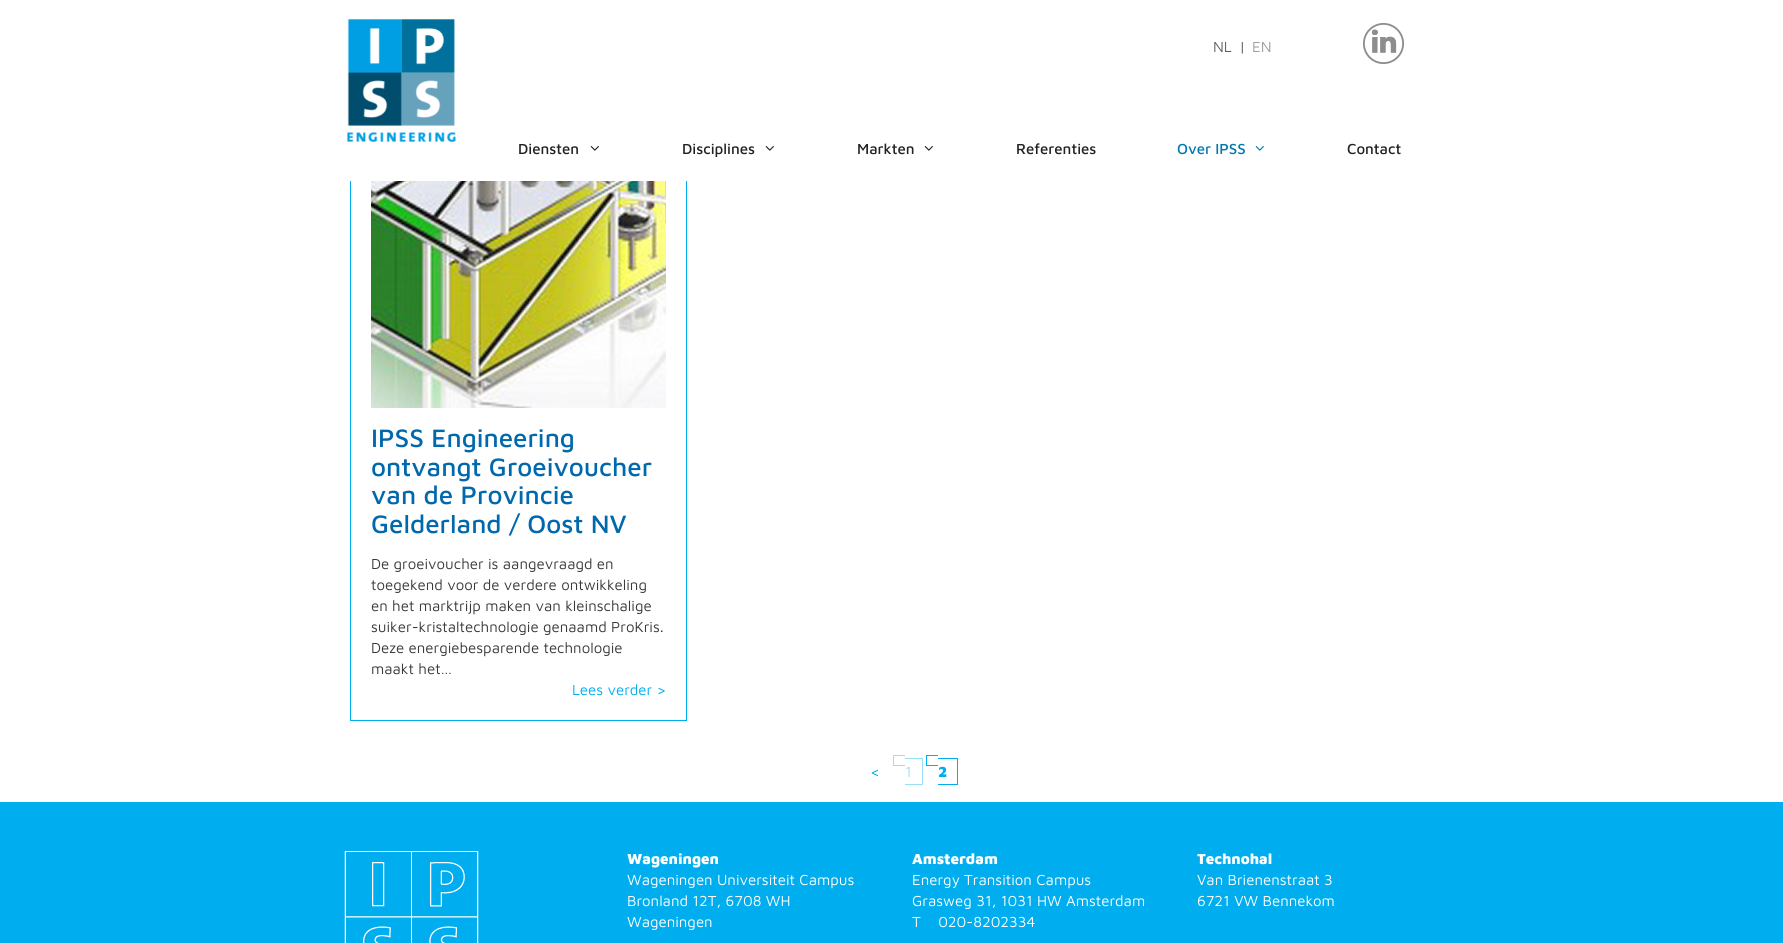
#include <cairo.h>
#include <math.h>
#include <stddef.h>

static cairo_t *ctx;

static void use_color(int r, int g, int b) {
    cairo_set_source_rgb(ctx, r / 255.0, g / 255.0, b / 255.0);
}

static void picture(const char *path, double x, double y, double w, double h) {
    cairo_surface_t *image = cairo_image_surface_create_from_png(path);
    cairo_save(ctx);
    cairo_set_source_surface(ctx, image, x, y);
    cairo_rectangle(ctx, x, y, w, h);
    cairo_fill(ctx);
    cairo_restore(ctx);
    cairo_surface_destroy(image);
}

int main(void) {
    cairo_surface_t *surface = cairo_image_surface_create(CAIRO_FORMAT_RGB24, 1783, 943);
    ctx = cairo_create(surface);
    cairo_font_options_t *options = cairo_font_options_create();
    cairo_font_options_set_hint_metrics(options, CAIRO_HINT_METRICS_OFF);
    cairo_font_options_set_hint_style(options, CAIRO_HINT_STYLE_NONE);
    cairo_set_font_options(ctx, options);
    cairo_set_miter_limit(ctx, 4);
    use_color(255, 255, 255);
    cairo_paint(ctx);
    cairo_rectangle(ctx, 350.5, -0.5, 336, 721);
    use_color(0, 174, 239);
    cairo_set_line_width(ctx, 1);
    cairo_stroke(ctx);
    use_color(255, 255, 255);
    cairo_rectangle(ctx, 350, 0, 337, 181);
    cairo_fill(ctx);
    picture("img1.png", 347, 19, 109, 123);
    cairo_select_font_face(ctx, "Maven Pro", CAIRO_FONT_SLANT_NORMAL, CAIRO_FONT_WEIGHT_NORMAL);
    cairo_set_font_size(ctx, 15);
    use_color(97, 97, 97);
    cairo_move_to(ctx, 1213, 52);
    cairo_show_text(ctx, "NL");
    cairo_move_to(ctx, 1239, 52);
    cairo_show_text(ctx, "|");
    use_color(157, 157, 157);
    cairo_move_to(ctx, 1252, 52);
    cairo_show_text(ctx, "EN");
    picture("img2.png", 1363, 23, 41, 41);
    cairo_select_font_face(ctx, "Maven Pro Medium", CAIRO_FONT_SLANT_NORMAL, CAIRO_FONT_WEIGHT_NORMAL);
    use_color(34, 34, 34);
    cairo_move_to(ctx, 518, 154);
    cairo_show_text(ctx, "Diensten");
    picture("img3.png", 590, 146, 9, 5);
    cairo_move_to(ctx, 682, 154);
    cairo_show_text(ctx, "Disciplines");
    picture("img3.png", 765, 146, 9, 5);
    cairo_move_to(ctx, 857, 154);
    cairo_show_text(ctx, "Markten");
    picture("img3.png", 924, 146, 9, 5);
    cairo_move_to(ctx, 1016, 154);
    cairo_show_text(ctx, "Referenties");
    use_color(0, 120, 174);
    cairo_move_to(ctx, 1177, 154);
    cairo_show_text(ctx, "Over IPSS");
    picture("img4.png", 1255, 146, 9, 5);
    use_color(34, 34, 34);
    cairo_move_to(ctx, 1347, 154);
    cairo_show_text(ctx, "Contact");
    picture("img5.png", 371, 181, 295, 227);
    cairo_set_font_size(ctx, 26);
    use_color(0, 104, 172);
    cairo_move_to(ctx, 371, 447);
    cairo_show_text(ctx, "IPSS Engineering");
    cairo_move_to(ctx, 371, 476);
    cairo_show_text(ctx, "ontvangt Groeivoucher");
    cairo_move_to(ctx, 371, 504);
    cairo_show_text(ctx, "van de Provincie");
    cairo_move_to(ctx, 371, 533);
    cairo_show_text(ctx, "Gelderland / Oost NV");
    cairo_select_font_face(ctx, "Maven Pro", CAIRO_FONT_SLANT_NORMAL, CAIRO_FONT_WEIGHT_NORMAL);
    cairo_set_font_size(ctx, 15);
    use_color(58, 58, 58);
    cairo_move_to(ctx, 371, 569);
    cairo_show_text(ctx, "De groeivoucher is aangevraagd en");
    cairo_move_to(ctx, 371, 590);
    cairo_show_text(ctx, "toegekend voor de verdere ontwikkeling");
    cairo_move_to(ctx, 371, 611);
    cairo_show_text(ctx, "en het marktrijp maken van kleinschalige");
    cairo_move_to(ctx, 371, 632);
    cairo_show_text(ctx, "suiker-kristaltechnologie genaamd ProKris.");
    cairo_move_to(ctx, 371, 653);
    cairo_show_text(ctx, "Deze energiebesparende technologie");
    cairo_move_to(ctx, 371, 674);
    cairo_show_text(ctx, "maakt het…");
    use_color(0, 174, 239);
    cairo_move_to(ctx, 572, 695);
    cairo_show_text(ctx, "Lees verder >");
    cairo_move_to(ctx, 870, 777);
    cairo_show_text(ctx, "<");
    use_color(154, 223, 249);
    cairo_move_to(ctx, 905, 777);
    cairo_show_text(ctx, "1");
    cairo_rectangle(ctx, 893, 755, 12, 1);
    cairo_fill(ctx);
    cairo_rectangle(ctx, 893, 765, 12, 1);
    cairo_fill(ctx);
    cairo_rectangle(ctx, 893, 755, 1, 11);
    cairo_fill(ctx);
    cairo_rectangle(ctx, 905, 758, 18, 1);
    cairo_fill(ctx);
    cairo_rectangle(ctx, 922, 758, 1, 27);
    cairo_fill(ctx);
    cairo_rectangle(ctx, 905, 784, 18, 1);
    cairo_fill(ctx);
    cairo_select_font_face(ctx, "Maven Pro Black", CAIRO_FONT_SLANT_NORMAL, CAIRO_FONT_WEIGHT_NORMAL);
    use_color(0, 174, 239);
    cairo_move_to(ctx, 938, 777);
    cairo_show_text(ctx, "2");
    cairo_rectangle(ctx, 926, 755, 12, 1);
    cairo_fill(ctx);
    cairo_rectangle(ctx, 926, 765, 12, 1);
    cairo_fill(ctx);
    cairo_rectangle(ctx, 926, 755, 1, 11);
    cairo_fill(ctx);
    cairo_rectangle(ctx, 938, 758, 20, 1);
    cairo_fill(ctx);
    cairo_rectangle(ctx, 957, 758, 1, 27);
    cairo_fill(ctx);
    cairo_rectangle(ctx, 938, 784, 20, 1);
    cairo_fill(ctx);
    cairo_rectangle(ctx, 0, 802, 1783, 141);
    cairo_fill(ctx);
    picture("img6.png", 344, 851, 135, 92);
    use_color(255, 255, 255);
    cairo_move_to(ctx, 627, 864);
    cairo_show_text(ctx, "Wageningen");
    cairo_select_font_face(ctx, "Maven Pro", CAIRO_FONT_SLANT_NORMAL, CAIRO_FONT_WEIGHT_NORMAL);
    cairo_move_to(ctx, 627, 885);
    cairo_show_text(ctx, "Wageningen Universiteit Campus");
    cairo_move_to(ctx, 627, 906);
    cairo_show_text(ctx, "Bronland 12T, 6708 WH");
    cairo_move_to(ctx, 627, 927);
    cairo_show_text(ctx, "Wageningen");
    cairo_select_font_face(ctx, "Maven Pro Black", CAIRO_FONT_SLANT_NORMAL, CAIRO_FONT_WEIGHT_NORMAL);
    cairo_move_to(ctx, 912, 864);
    cairo_show_text(ctx, "Amsterdam");
    cairo_select_font_face(ctx, "Maven Pro", CAIRO_FONT_SLANT_NORMAL, CAIRO_FONT_WEIGHT_NORMAL);
    cairo_move_to(ctx, 912, 885);
    cairo_show_text(ctx, "Energy Transition Campus");
    cairo_move_to(ctx, 912, 906);
    cairo_show_text(ctx, "Grasweg 31, 1031 HW Amsterdam");
    cairo_move_to(ctx, 912, 927);
    cairo_show_text(ctx, "T    020-8202334");
    cairo_select_font_face(ctx, "Maven Pro Black", CAIRO_FONT_SLANT_NORMAL, CAIRO_FONT_WEIGHT_NORMAL);
    cairo_move_to(ctx, 1197, 864);
    cairo_show_text(ctx, "Technohal");
    cairo_select_font_face(ctx, "Maven Pro", CAIRO_FONT_SLANT_NORMAL, CAIRO_FONT_WEIGHT_NORMAL);
    cairo_move_to(ctx, 1197, 885);
    cairo_show_text(ctx, "Van Brienenstraat 3");
    cairo_move_to(ctx, 1197, 906);
    cairo_show_text(ctx, "6721 VW Bennekom");
    cairo_surface_write_to_png(surface, "result.png");
    cairo_font_options_destroy(options);
    cairo_destroy(ctx);
    cairo_surface_destroy(surface);
    return 0;
}
